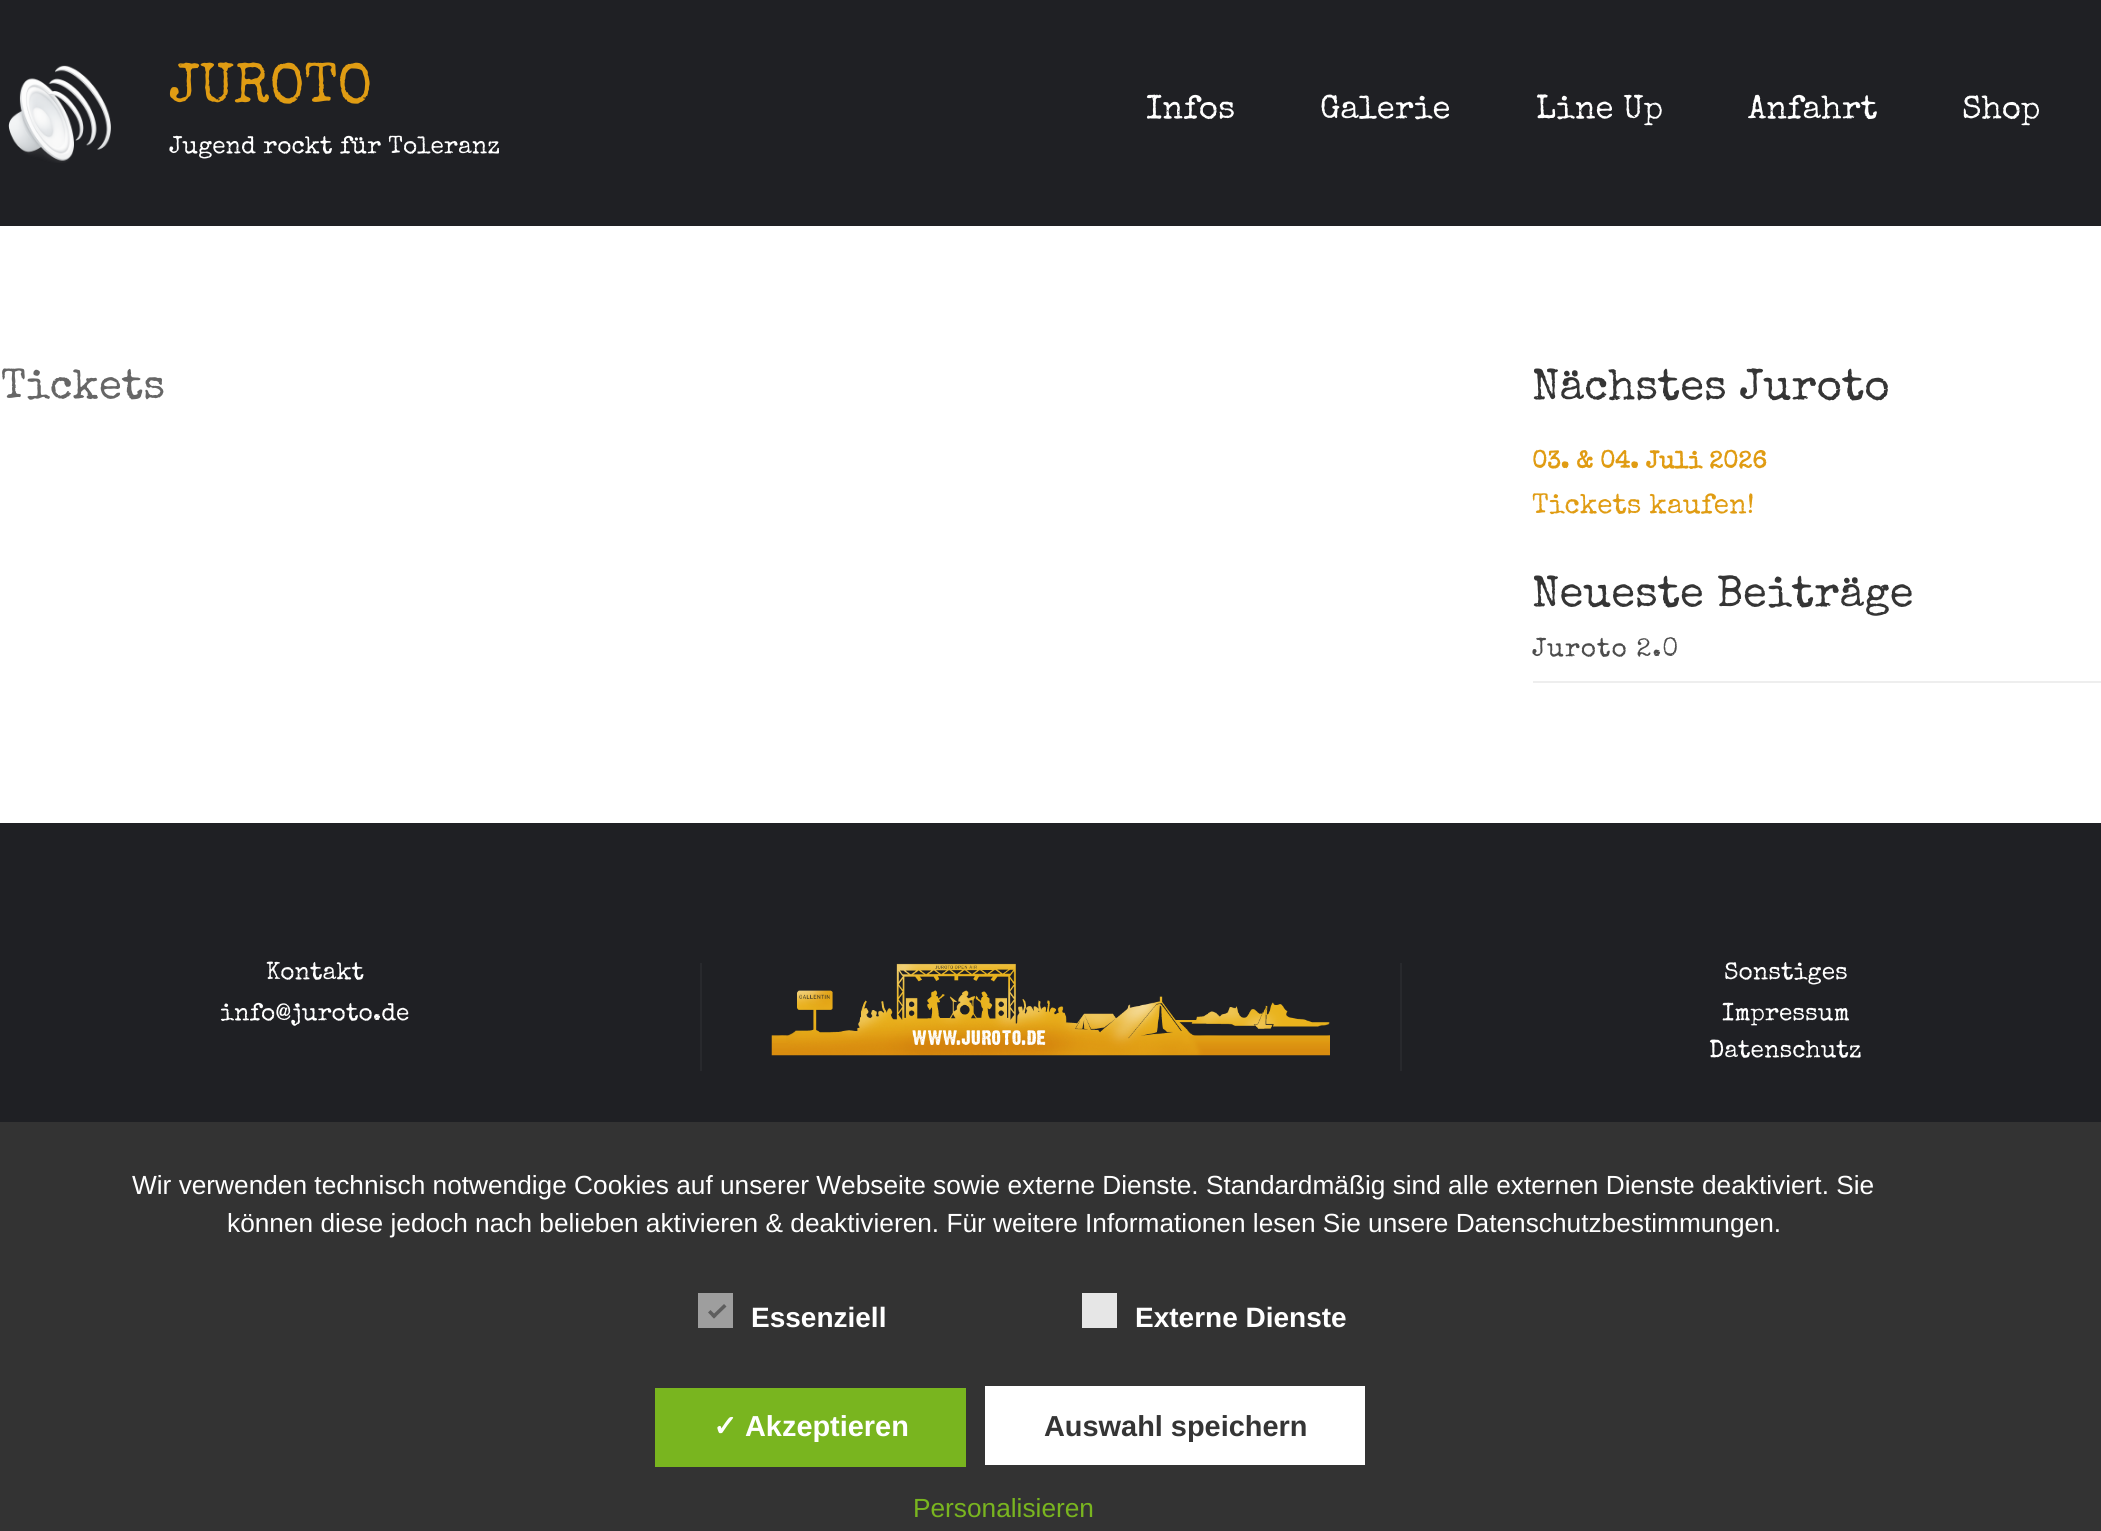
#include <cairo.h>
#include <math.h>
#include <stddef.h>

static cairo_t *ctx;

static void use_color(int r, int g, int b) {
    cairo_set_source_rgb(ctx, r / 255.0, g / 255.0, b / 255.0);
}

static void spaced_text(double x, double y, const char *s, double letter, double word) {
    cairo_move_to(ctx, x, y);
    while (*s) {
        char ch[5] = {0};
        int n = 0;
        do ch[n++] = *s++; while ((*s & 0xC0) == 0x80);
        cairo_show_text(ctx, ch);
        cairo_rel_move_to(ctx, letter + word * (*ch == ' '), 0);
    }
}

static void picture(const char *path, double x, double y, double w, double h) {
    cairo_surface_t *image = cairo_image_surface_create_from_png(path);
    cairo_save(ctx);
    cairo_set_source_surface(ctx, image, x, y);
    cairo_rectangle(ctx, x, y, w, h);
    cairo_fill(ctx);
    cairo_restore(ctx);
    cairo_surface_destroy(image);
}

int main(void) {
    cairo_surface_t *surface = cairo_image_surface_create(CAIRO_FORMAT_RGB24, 2101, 1531);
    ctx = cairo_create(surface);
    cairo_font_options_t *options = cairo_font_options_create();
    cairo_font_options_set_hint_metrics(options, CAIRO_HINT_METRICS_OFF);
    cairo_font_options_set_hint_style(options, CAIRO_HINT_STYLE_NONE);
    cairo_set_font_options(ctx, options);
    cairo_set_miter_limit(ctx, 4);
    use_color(255, 255, 255);
    cairo_paint(ctx);
    use_color(31, 32, 36);
    cairo_rectangle(ctx, 0, 0, 2101, 226);
    cairo_fill(ctx);
    picture("img1.png", 8, 65, 103, 98);
    cairo_select_font_face(ctx, "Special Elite", CAIRO_FONT_SLANT_NORMAL, CAIRO_FONT_WEIGHT_NORMAL);
    cairo_set_font_size(ctx, 56);
    use_color(224, 156, 19);
    cairo_move_to(ctx, 169, 102);
    cairo_show_text(ctx, "JUROTO");
    cairo_set_font_size(ctx, 24.5);
    use_color(255, 255, 255);
    cairo_move_to(ctx, 169, 153);
    cairo_show_text(ctx, "Jugend rockt für Toleranz");
    cairo_set_font_size(ctx, 33);
    cairo_move_to(ctx, 1146, 118);
    cairo_show_text(ctx, "Infos");
    cairo_move_to(ctx, 1320, 118);
    cairo_show_text(ctx, "Galerie");
    cairo_move_to(ctx, 1536, 118);
    cairo_show_text(ctx, "Line Up");
    cairo_move_to(ctx, 1748, 118);
    cairo_show_text(ctx, "Anfahrt");
    cairo_move_to(ctx, 1962, 118);
    cairo_show_text(ctx, "Shop");
    cairo_set_font_size(ctx, 42);
    use_color(102, 102, 102);
    cairo_move_to(ctx, 1, 398);
    cairo_show_text(ctx, "Tickets");
    cairo_set_font_size(ctx, 43.75);
    use_color(53, 53, 53);
    cairo_move_to(ctx, 1532, 399);
    cairo_show_text(ctx, "Nächstes Juroto");
    cairo_select_font_face(ctx, "Special Elite", CAIRO_FONT_SLANT_NORMAL, CAIRO_FONT_WEIGHT_BOLD);
    cairo_set_font_size(ctx, 24.5);
    use_color(224, 156, 19);
    cairo_move_to(ctx, 1532, 468);
    cairo_show_text(ctx, "03. & 04. Juli 2026");
    cairo_select_font_face(ctx, "Special Elite", CAIRO_FONT_SLANT_NORMAL, CAIRO_FONT_WEIGHT_NORMAL);
    cairo_set_font_size(ctx, 28);
    cairo_move_to(ctx, 1532, 513);
    cairo_show_text(ctx, "Tickets kaufen!");
    cairo_set_font_size(ctx, 43.75);
    use_color(53, 53, 53);
    cairo_move_to(ctx, 1532, 606);
    cairo_show_text(ctx, "Neueste Beiträge");
    use_color(238, 238, 238);
    cairo_rectangle(ctx, 1533, 681, 568, 2);
    cairo_fill(ctx);
    cairo_set_font_size(ctx, 26.25);
    use_color(77, 77, 77);
    spaced_text(1532, 656, "Juroto 2.0", 0.9, 0);
    use_color(31, 32, 36);
    cairo_rectangle(ctx, 0, 823, 2101, 299);
    cairo_fill(ctx);
    use_color(40, 41, 45);
    cairo_rectangle(ctx, 700, 963, 2, 108);
    cairo_fill(ctx);
    cairo_set_font_size(ctx, 24.5);
    use_color(255, 255, 255);
    cairo_move_to(ctx, 266, 979);
    cairo_show_text(ctx, "Kontakt");
    cairo_move_to(ctx, 220, 1020);
    cairo_show_text(ctx, "info@juroto.de");
    use_color(40, 41, 45);
    cairo_rectangle(ctx, 1400, 963, 2, 108);
    cairo_fill(ctx);
    picture("img2.png", 771, 963, 559, 93);
    use_color(255, 255, 255);
    cairo_move_to(ctx, 1724, 979);
    cairo_show_text(ctx, "Sonstiges");
    cairo_move_to(ctx, 1722, 1020);
    cairo_show_text(ctx, "Impressum");
    cairo_move_to(ctx, 1709, 1057);
    cairo_show_text(ctx, "Datenschutz");
    use_color(51, 51, 51);
    cairo_rectangle(ctx, 0, 1122, 2101, 409);
    cairo_fill(ctx);
    cairo_select_font_face(ctx, "Liberation Sans", CAIRO_FONT_SLANT_NORMAL, CAIRO_FONT_WEIGHT_NORMAL);
    cairo_set_font_size(ctx, 26.25);
    use_color(255, 255, 255);
    cairo_move_to(ctx, 132, 1194);
    cairo_show_text(ctx, "Wir verwenden technisch notwendige Cookies auf unserer Webseite sowie externe Dienste. Standardmäßig sind alle externen Dienste deaktiviert. Sie");
    cairo_move_to(ctx, 227, 1232);
    cairo_show_text(ctx, "können diese jedoch nach belieben aktivieren & deaktivieren. Für weitere Informationen lesen Sie unsere Datenschutzbestimmungen.");
    use_color(158, 158, 158);
    cairo_rectangle(ctx, 698, 1293, 35, 35);
    cairo_fill(ctx);
    use_color(94, 94, 94);
    cairo_new_path(ctx);
    cairo_move_to(ctx, 724, 1304);
    cairo_line_to(ctx, 726.5, 1306.5);
    cairo_line_to(ctx, 714, 1318.5);
    cairo_line_to(ctx, 711.5, 1316);
    cairo_close_path(ctx);
    cairo_fill(ctx);
    cairo_new_path(ctx);
    cairo_move_to(ctx, 710.5, 1310);
    cairo_line_to(ctx, 716.5, 1316);
    cairo_line_to(ctx, 714, 1318.5);
    cairo_line_to(ctx, 708, 1312.5);
    cairo_close_path(ctx);
    cairo_fill(ctx);
    cairo_select_font_face(ctx, "Liberation Sans", CAIRO_FONT_SLANT_NORMAL, CAIRO_FONT_WEIGHT_BOLD);
    cairo_set_font_size(ctx, 28);
    use_color(255, 255, 255);
    cairo_move_to(ctx, 751, 1327);
    cairo_show_text(ctx, "Essenziell");
    use_color(230, 230, 230);
    cairo_rectangle(ctx, 1082, 1293, 35, 35);
    cairo_fill(ctx);
    use_color(255, 255, 255);
    cairo_move_to(ctx, 1135, 1327);
    cairo_show_text(ctx, "Externe Dienste");
    use_color(121, 181, 31);
    cairo_rectangle(ctx, 655, 1388, 311, 79);
    cairo_fill(ctx);
    cairo_select_font_face(ctx, "DejaVu Sans", CAIRO_FONT_SLANT_NORMAL, CAIRO_FONT_WEIGHT_BOLD);
    cairo_set_font_size(ctx, 28.9);
    use_color(255, 255, 255);
    cairo_move_to(ctx, 713, 1436);
    cairo_show_text(ctx, "✓");
    cairo_select_font_face(ctx, "Liberation Sans", CAIRO_FONT_SLANT_NORMAL, CAIRO_FONT_WEIGHT_BOLD);
    cairo_move_to(ctx, 745, 1436);
    cairo_show_text(ctx, "Akzeptieren");
    cairo_rectangle(ctx, 985, 1386, 380, 79);
    cairo_fill(ctx);
    use_color(53, 53, 53);
    cairo_move_to(ctx, 1044, 1436);
    cairo_show_text(ctx, "Auswahl speichern");
    cairo_select_font_face(ctx, "Liberation Sans", CAIRO_FONT_SLANT_NORMAL, CAIRO_FONT_WEIGHT_NORMAL);
    cairo_set_font_size(ctx, 26.25);
    use_color(121, 181, 31);
    cairo_move_to(ctx, 913, 1517);
    cairo_show_text(ctx, "Personalisieren");
    cairo_surface_write_to_png(surface, "result.png");
    cairo_font_options_destroy(options);
    cairo_destroy(ctx);
    cairo_surface_destroy(surface);
    return 0;
}
